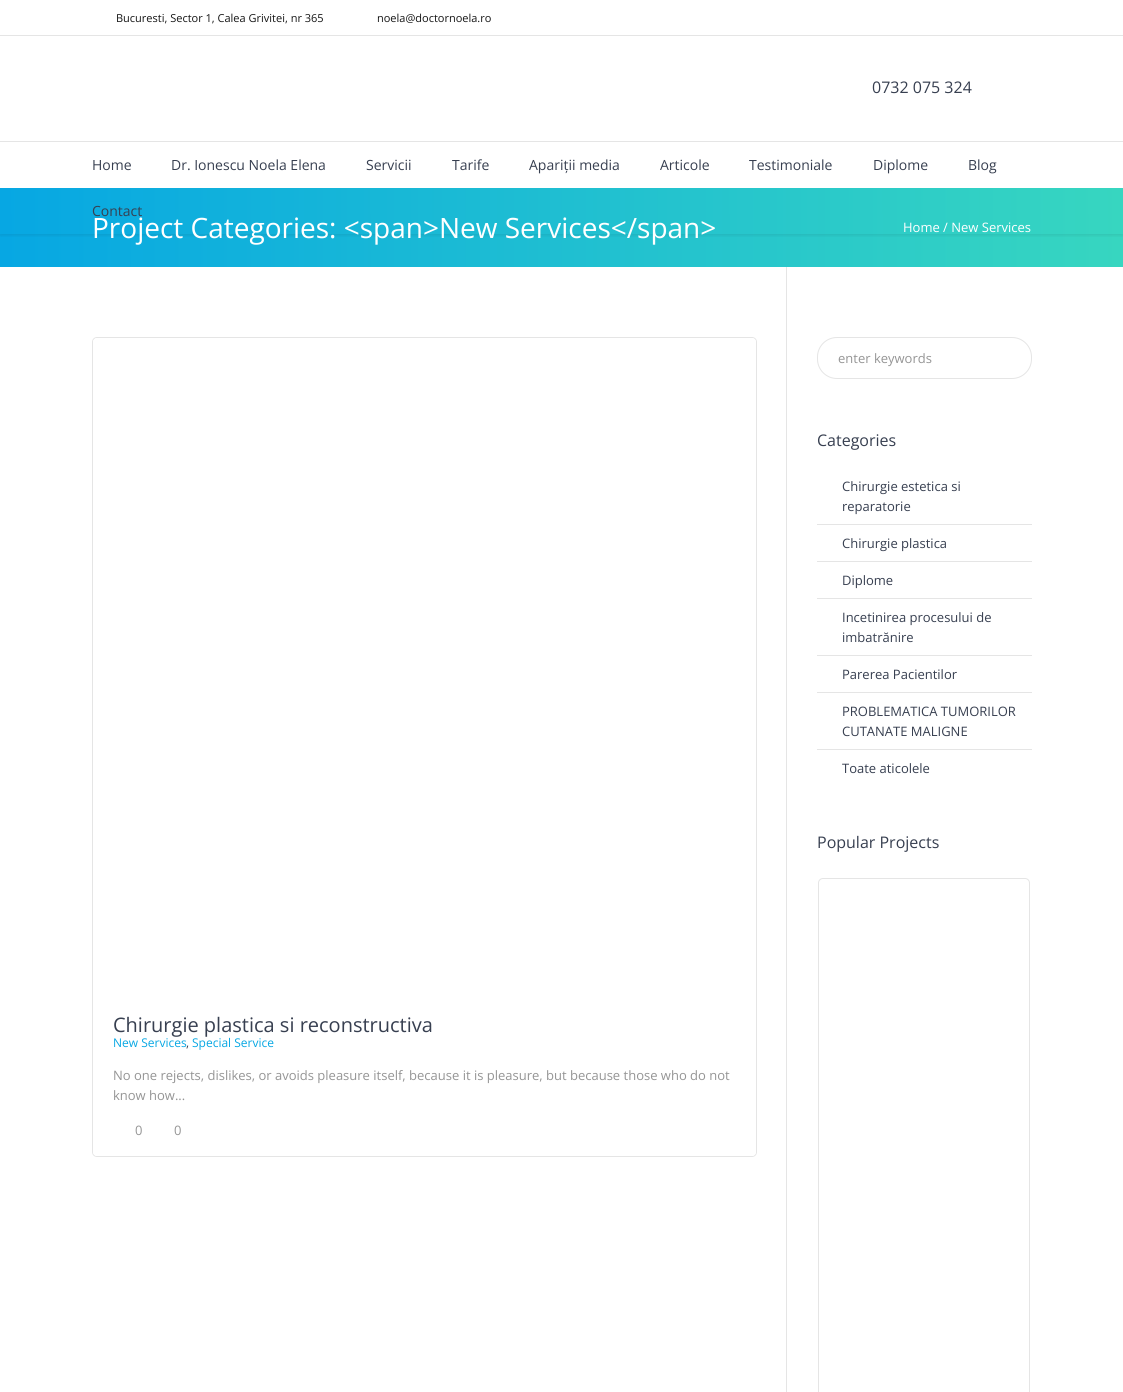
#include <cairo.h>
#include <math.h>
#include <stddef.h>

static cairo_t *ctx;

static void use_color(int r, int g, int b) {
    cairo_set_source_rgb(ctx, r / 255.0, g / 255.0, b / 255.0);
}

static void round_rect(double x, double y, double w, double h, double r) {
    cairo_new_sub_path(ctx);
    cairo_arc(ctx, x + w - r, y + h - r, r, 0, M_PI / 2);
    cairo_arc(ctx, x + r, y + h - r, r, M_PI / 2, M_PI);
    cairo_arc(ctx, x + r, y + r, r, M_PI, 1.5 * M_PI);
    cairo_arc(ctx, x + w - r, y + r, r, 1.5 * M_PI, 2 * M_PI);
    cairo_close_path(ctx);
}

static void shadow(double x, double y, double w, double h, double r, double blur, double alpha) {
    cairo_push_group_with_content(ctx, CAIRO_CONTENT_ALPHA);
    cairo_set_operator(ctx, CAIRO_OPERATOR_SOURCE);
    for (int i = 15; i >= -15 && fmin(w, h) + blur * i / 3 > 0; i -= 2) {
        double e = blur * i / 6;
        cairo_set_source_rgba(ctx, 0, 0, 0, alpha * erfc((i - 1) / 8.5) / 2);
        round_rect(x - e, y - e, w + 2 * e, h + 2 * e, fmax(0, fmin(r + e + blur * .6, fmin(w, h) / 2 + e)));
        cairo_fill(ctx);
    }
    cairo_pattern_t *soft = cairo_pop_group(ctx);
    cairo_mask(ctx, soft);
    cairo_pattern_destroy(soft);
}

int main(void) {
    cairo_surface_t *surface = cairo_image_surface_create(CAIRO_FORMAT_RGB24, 1123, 1392);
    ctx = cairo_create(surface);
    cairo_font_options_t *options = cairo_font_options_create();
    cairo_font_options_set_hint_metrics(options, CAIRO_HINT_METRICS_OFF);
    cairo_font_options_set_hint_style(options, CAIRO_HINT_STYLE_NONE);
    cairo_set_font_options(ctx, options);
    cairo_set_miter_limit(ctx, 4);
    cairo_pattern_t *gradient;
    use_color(255, 255, 255);
    cairo_paint(ctx);
    gradient = cairo_pattern_create_linear(0, 134, 1123, 133);
    cairo_pattern_add_color_stop_rgba(gradient, 0, 0.027, 0.655, 0.89, 1);
    cairo_pattern_add_color_stop_rgba(gradient, 1, 0.216, 0.839, 0.753, 1);
    cairo_set_source(ctx, gradient);
    cairo_pattern_destroy(gradient);
    cairo_rectangle(ctx, 0, 188, 1123, 79);
    cairo_fill(ctx);
    cairo_save(ctx);
    cairo_rectangle(ctx, 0, 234, 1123, 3);
    cairo_clip(ctx);
    use_color(0, 0, 0);
    shadow(0, 1, 1123, 234, 0, 2.5, 0.1);
    cairo_restore(ctx);
    use_color(229, 229, 229);
    cairo_rectangle(ctx, 0, 35, 1123, 1);
    cairo_fill(ctx);
    cairo_select_font_face(ctx, "Open Sans", CAIRO_FONT_SLANT_NORMAL, CAIRO_FONT_WEIGHT_NORMAL);
    cairo_set_font_size(ctx, 11);
    use_color(21, 21, 21);
    cairo_move_to(ctx, 116, 22);
    cairo_show_text(ctx, "Bucuresti, Sector 1, Calea Grivitei, nr 365");
    cairo_move_to(ctx, 377, 22);
    cairo_show_text(ctx, "noela@doctornoela.ro");
    cairo_set_font_size(ctx, 16);
    use_color(55, 63, 80);
    cairo_move_to(ctx, 872, 93);
    cairo_show_text(ctx, "0732 075 324");
    use_color(229, 229, 229);
    cairo_rectangle(ctx, 0, 141, 1123, 1);
    cairo_fill(ctx);
    cairo_set_font_size(ctx, 14);
    use_color(55, 63, 80);
    cairo_move_to(ctx, 92, 170);
    cairo_show_text(ctx, "Home");
    cairo_move_to(ctx, 171, 170);
    cairo_show_text(ctx, "Dr. Ionescu Noela Elena");
    cairo_move_to(ctx, 366, 170);
    cairo_show_text(ctx, "Servicii");
    cairo_move_to(ctx, 452, 170);
    cairo_show_text(ctx, "Tarife");
    cairo_move_to(ctx, 529, 170);
    cairo_show_text(ctx, "Apariții media");
    cairo_move_to(ctx, 660, 170);
    cairo_show_text(ctx, "Articole");
    cairo_move_to(ctx, 749, 170);
    cairo_show_text(ctx, "Testimoniale");
    cairo_move_to(ctx, 873, 170);
    cairo_show_text(ctx, "Diplome");
    cairo_move_to(ctx, 968, 170);
    cairo_show_text(ctx, "Blog");
    cairo_move_to(ctx, 92, 216);
    cairo_show_text(ctx, "Contact");
    cairo_set_font_size(ctx, 28);
    use_color(255, 255, 255);
    cairo_move_to(ctx, 92, 238);
    cairo_show_text(ctx, "Project Categories: <span>New Services</span>");
    cairo_set_font_size(ctx, 13);
    cairo_move_to(ctx, 903, 232);
    cairo_show_text(ctx, "Home / New Services");
    use_color(229, 229, 229);
    cairo_rectangle(ctx, 786, 267, 1, 1125);
    cairo_fill(ctx);
    round_rect(817.5, 337.5, 214, 41, 19.5);
    cairo_set_line_width(ctx, 1);
    cairo_stroke(ctx);
    use_color(149, 149, 149);
    cairo_move_to(ctx, 838, 363);
    cairo_show_text(ctx, "enter keywords");
    cairo_set_font_size(ctx, 16);
    use_color(55, 63, 80);
    cairo_move_to(ctx, 817, 446);
    cairo_show_text(ctx, "Categories");
    use_color(229, 229, 229);
    cairo_rectangle(ctx, 817, 524, 215, 1);
    cairo_fill(ctx);
    cairo_set_font_size(ctx, 13);
    use_color(55, 63, 80);
    cairo_move_to(ctx, 842, 491);
    cairo_show_text(ctx, "Chirurgie estetica si");
    cairo_move_to(ctx, 842, 511);
    cairo_show_text(ctx, "reparatorie");
    use_color(229, 229, 229);
    cairo_rectangle(ctx, 817, 561, 215, 1);
    cairo_fill(ctx);
    use_color(55, 63, 80);
    cairo_move_to(ctx, 842, 548);
    cairo_show_text(ctx, "Chirurgie plastica");
    use_color(229, 229, 229);
    cairo_rectangle(ctx, 817, 598, 215, 1);
    cairo_fill(ctx);
    use_color(55, 63, 80);
    cairo_move_to(ctx, 842, 585);
    cairo_show_text(ctx, "Diplome");
    use_color(229, 229, 229);
    cairo_rectangle(ctx, 817, 655, 215, 1);
    cairo_fill(ctx);
    use_color(55, 63, 80);
    cairo_move_to(ctx, 842, 622);
    cairo_show_text(ctx, "Incetinirea procesului de");
    cairo_move_to(ctx, 842, 642);
    cairo_show_text(ctx, "imbatrănire");
    use_color(229, 229, 229);
    cairo_rectangle(ctx, 817, 692, 215, 1);
    cairo_fill(ctx);
    use_color(55, 63, 80);
    cairo_move_to(ctx, 842, 679);
    cairo_show_text(ctx, "Parerea Pacientilor");
    use_color(229, 229, 229);
    cairo_rectangle(ctx, 817, 749, 215, 1);
    cairo_fill(ctx);
    use_color(55, 63, 80);
    cairo_move_to(ctx, 842, 716);
    cairo_show_text(ctx, "PROBLEMATICA TUMORILOR");
    cairo_move_to(ctx, 842, 736);
    cairo_show_text(ctx, "CUTANATE MALIGNE");
    cairo_move_to(ctx, 842, 773);
    cairo_show_text(ctx, "Toate aticolele");
    cairo_set_font_size(ctx, 16);
    cairo_move_to(ctx, 817, 848);
    cairo_show_text(ctx, "Popular Projects");
    round_rect(818.5, 878.5, 211, 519, 4.5);
    use_color(229, 229, 229);
    cairo_stroke(ctx);
    round_rect(92.5, 337.5, 664, 819, 4.5);
    cairo_stroke(ctx);
    use_color(255, 255, 255);
    round_rect(93, 338, 663, 818, 4);
    cairo_fill(ctx);
    cairo_set_font_size(ctx, 20);
    use_color(55, 63, 80);
    cairo_move_to(ctx, 113, 1032);
    cairo_show_text(ctx, "Chirurgie plastica si reconstructiva");
    cairo_set_font_size(ctx, 12);
    use_color(7, 167, 227);
    cairo_move_to(ctx, 113, 1047);
    cairo_show_text(ctx, "New Services");
    use_color(55, 63, 80);
    cairo_move_to(ctx, 186, 1047);
    cairo_show_text(ctx, ",");
    use_color(7, 167, 227);
    cairo_move_to(ctx, 192, 1047);
    cairo_show_text(ctx, "Special Service");
    cairo_set_font_size(ctx, 13);
    use_color(149, 149, 149);
    cairo_move_to(ctx, 113, 1080);
    cairo_show_text(ctx, "No one rejects, dislikes, or avoids pleasure itself, because it is pleasure, but because those who do not");
    cairo_move_to(ctx, 113, 1100);
    cairo_show_text(ctx, "know how...");
    cairo_move_to(ctx, 135, 1135);
    cairo_show_text(ctx, "0");
    cairo_move_to(ctx, 174, 1135);
    cairo_show_text(ctx, "0");
    cairo_surface_write_to_png(surface, "result.png");
    cairo_font_options_destroy(options);
    cairo_destroy(ctx);
    cairo_surface_destroy(surface);
    return 0;
}
